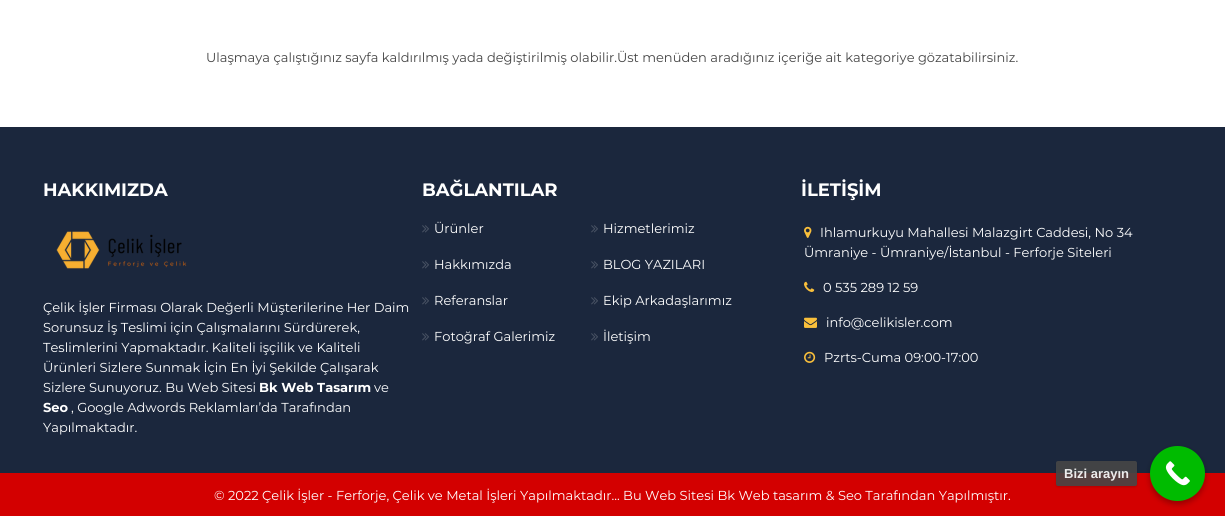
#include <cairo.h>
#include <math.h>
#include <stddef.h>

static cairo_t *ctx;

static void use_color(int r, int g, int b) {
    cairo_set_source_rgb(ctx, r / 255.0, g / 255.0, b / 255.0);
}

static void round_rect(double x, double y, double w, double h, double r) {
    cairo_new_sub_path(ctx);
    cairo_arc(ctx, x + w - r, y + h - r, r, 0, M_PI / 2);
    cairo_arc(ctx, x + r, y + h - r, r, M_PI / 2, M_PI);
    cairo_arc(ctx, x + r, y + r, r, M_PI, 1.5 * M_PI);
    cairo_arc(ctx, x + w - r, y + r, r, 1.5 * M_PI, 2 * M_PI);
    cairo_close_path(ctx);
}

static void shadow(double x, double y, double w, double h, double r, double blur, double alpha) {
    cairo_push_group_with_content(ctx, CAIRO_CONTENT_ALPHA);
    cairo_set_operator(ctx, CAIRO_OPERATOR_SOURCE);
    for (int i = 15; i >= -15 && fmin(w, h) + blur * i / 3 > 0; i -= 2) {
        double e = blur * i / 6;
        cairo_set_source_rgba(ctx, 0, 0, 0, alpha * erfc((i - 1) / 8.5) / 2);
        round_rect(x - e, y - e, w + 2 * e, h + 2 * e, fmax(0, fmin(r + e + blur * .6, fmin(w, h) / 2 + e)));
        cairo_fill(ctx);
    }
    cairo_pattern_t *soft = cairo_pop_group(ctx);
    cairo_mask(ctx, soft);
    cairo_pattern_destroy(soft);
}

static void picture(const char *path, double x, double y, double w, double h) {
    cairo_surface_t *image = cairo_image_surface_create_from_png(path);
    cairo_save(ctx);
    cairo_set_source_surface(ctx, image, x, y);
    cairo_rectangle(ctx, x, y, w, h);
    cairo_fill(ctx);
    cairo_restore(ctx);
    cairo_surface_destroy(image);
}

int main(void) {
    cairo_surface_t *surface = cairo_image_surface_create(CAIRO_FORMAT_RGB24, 1225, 516);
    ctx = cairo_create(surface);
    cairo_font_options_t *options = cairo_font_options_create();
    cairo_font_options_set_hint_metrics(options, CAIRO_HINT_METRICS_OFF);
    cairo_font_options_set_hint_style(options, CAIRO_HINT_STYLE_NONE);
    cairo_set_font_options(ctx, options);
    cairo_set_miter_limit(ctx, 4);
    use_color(255, 255, 255);
    cairo_paint(ctx);
    cairo_select_font_face(ctx, "Montserrat", CAIRO_FONT_SLANT_NORMAL, CAIRO_FONT_WEIGHT_NORMAL);
    cairo_set_font_size(ctx, 13);
    use_color(68, 68, 68);
    cairo_move_to(ctx, 206, 62);
    cairo_show_text(ctx, "Ulaşmaya çalıştığınız sayfa kaldırılmış yada değiştirilmiş olabilir.Üst menüden aradığınız içeriğe ait kategoriye gözatabilirsiniz.");
    use_color(27, 39, 61);
    cairo_rectangle(ctx, 0, 127, 1225, 346);
    cairo_fill(ctx);
    cairo_select_font_face(ctx, "Montserrat", CAIRO_FONT_SLANT_NORMAL, CAIRO_FONT_WEIGHT_BOLD);
    cairo_set_font_size(ctx, 18);
    use_color(255, 255, 255);
    cairo_move_to(ctx, 43, 196);
    cairo_show_text(ctx, "HAKKIMIZDA");
    picture("img1.png", 56, 231, 131, 38);
    cairo_select_font_face(ctx, "Montserrat", CAIRO_FONT_SLANT_NORMAL, CAIRO_FONT_WEIGHT_NORMAL);
    cairo_set_font_size(ctx, 13);
    cairo_move_to(ctx, 43, 312);
    cairo_show_text(ctx, "Çelik İşler Firması Olarak Değerli Müşterilerine Her Daim");
    cairo_move_to(ctx, 43, 332);
    cairo_show_text(ctx, "Sorunsuz İş Teslimi için Çalışmalarını Sürdürerek,");
    cairo_move_to(ctx, 43, 352);
    cairo_show_text(ctx, "Teslimlerini Yapmaktadır. Kaliteli işçilik ve Kaliteli");
    cairo_move_to(ctx, 43, 372);
    cairo_show_text(ctx, "Ürünleri Sizlere Sunmak İçin En İyi Şekilde Çalışarak");
    cairo_move_to(ctx, 43, 392);
    cairo_show_text(ctx, "Sizlere Sunuyoruz. Bu Web Sitesi");
    cairo_select_font_face(ctx, "Montserrat", CAIRO_FONT_SLANT_NORMAL, CAIRO_FONT_WEIGHT_BOLD);
    cairo_move_to(ctx, 259, 392);
    cairo_show_text(ctx, "Bk Web Tasarım");
    cairo_select_font_face(ctx, "Montserrat", CAIRO_FONT_SLANT_NORMAL, CAIRO_FONT_WEIGHT_NORMAL);
    cairo_move_to(ctx, 374, 392);
    cairo_show_text(ctx, "ve");
    cairo_select_font_face(ctx, "Montserrat", CAIRO_FONT_SLANT_NORMAL, CAIRO_FONT_WEIGHT_BOLD);
    cairo_move_to(ctx, 43, 412);
    cairo_show_text(ctx, "Seo");
    cairo_select_font_face(ctx, "Montserrat", CAIRO_FONT_SLANT_NORMAL, CAIRO_FONT_WEIGHT_NORMAL);
    cairo_move_to(ctx, 71, 412);
    cairo_show_text(ctx, ", Google Adwords Reklamları’da Tarafından");
    cairo_move_to(ctx, 43, 432);
    cairo_show_text(ctx, "Yapılmaktadır.");
    cairo_select_font_face(ctx, "Montserrat", CAIRO_FONT_SLANT_NORMAL, CAIRO_FONT_WEIGHT_BOLD);
    cairo_set_font_size(ctx, 18);
    cairo_move_to(ctx, 422, 196);
    cairo_show_text(ctx, "BAĞLANTILAR");
    picture("img2.png", 422, 225, 7, 8);
    cairo_select_font_face(ctx, "Montserrat", CAIRO_FONT_SLANT_NORMAL, CAIRO_FONT_WEIGHT_NORMAL);
    cairo_set_font_size(ctx, 13);
    cairo_move_to(ctx, 434, 233);
    cairo_show_text(ctx, "Ürünler");
    picture("img2.png", 591, 225, 7, 8);
    cairo_move_to(ctx, 603, 233);
    cairo_show_text(ctx, "Hizmetlerimiz");
    picture("img2.png", 422, 261, 7, 8);
    cairo_move_to(ctx, 434, 269);
    cairo_show_text(ctx, "Hakkımızda");
    picture("img2.png", 591, 261, 7, 8);
    cairo_move_to(ctx, 603, 269);
    cairo_show_text(ctx, "BLOG YAZILARI");
    picture("img2.png", 422, 297, 7, 8);
    cairo_move_to(ctx, 434, 305);
    cairo_show_text(ctx, "Referanslar");
    picture("img2.png", 591, 297, 7, 8);
    cairo_move_to(ctx, 603, 305);
    cairo_show_text(ctx, "Ekip Arkadaşlarımız");
    picture("img2.png", 422, 333, 7, 8);
    cairo_move_to(ctx, 434, 341);
    cairo_show_text(ctx, "Fotoğraf Galerimiz");
    picture("img2.png", 591, 333, 7, 8);
    cairo_move_to(ctx, 603, 341);
    cairo_show_text(ctx, "İletişim");
    cairo_select_font_face(ctx, "Montserrat", CAIRO_FONT_SLANT_NORMAL, CAIRO_FONT_WEIGHT_BOLD);
    cairo_set_font_size(ctx, 18);
    cairo_move_to(ctx, 801, 196);
    cairo_show_text(ctx, "İLETİŞİM");
    picture("img3.png", 804, 226, 8, 12);
    cairo_select_font_face(ctx, "Montserrat", CAIRO_FONT_SLANT_NORMAL, CAIRO_FONT_WEIGHT_NORMAL);
    cairo_set_font_size(ctx, 13);
    cairo_move_to(ctx, 820, 237);
    cairo_show_text(ctx, "Ihlamurkuyu Mahallesi Malazgirt Caddesi, No 34");
    cairo_move_to(ctx, 804, 257);
    cairo_show_text(ctx, "Ümraniye - Ümraniye/İstanbul - Ferforje Siteleri");
    picture("img4.png", 804, 281, 11, 11);
    cairo_move_to(ctx, 823, 292);
    cairo_show_text(ctx, "0 535 289 12 59");
    picture("img5.png", 804, 317, 13, 11);
    cairo_move_to(ctx, 826, 327);
    cairo_show_text(ctx, "info@celikisler.com");
    picture("img6.png", 804, 351, 12, 12);
    cairo_move_to(ctx, 824, 362);
    cairo_show_text(ctx, "Pzrts-Cuma 09:00-17:00");
    use_color(211, 0, 0);
    cairo_rectangle(ctx, 0, 473, 1225, 43);
    cairo_fill(ctx);
    use_color(255, 255, 255);
    cairo_move_to(ctx, 214, 500);
    cairo_show_text(ctx, "© 2022 Çelik İşler - Ferforje, Çelik ve Metal İşleri Yapılmaktadır... Bu Web Sitesi Bk Web tasarım & Seo Tarafından Yapılmıştır.");
    use_color(0, 0, 0);
    shadow(1150, 449, 55, 55, 27.5, 3, 0.3);
    use_color(0, 187, 0);
    cairo_arc(ctx, 1177.5, 473.5, 27.5, 0, 2 * M_PI);
    cairo_fill(ctx);
    picture("img7.png", 1165, 461, 25, 25);
    cairo_save(ctx);
    cairo_set_fill_rule(ctx, CAIRO_FILL_RULE_EVEN_ODD);
    cairo_new_path(ctx);
    cairo_move_to(ctx, 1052, 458);
    cairo_line_to(ctx, 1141, 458);
    cairo_line_to(ctx, 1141, 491);
    cairo_line_to(ctx, 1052, 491);
    cairo_close_path(ctx);
    cairo_move_to(ctx, 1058, 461);
    cairo_line_to(ctx, 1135, 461);
    cairo_curve_to(ctx, 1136, 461, 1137, 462, 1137, 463);
    cairo_line_to(ctx, 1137, 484);
    cairo_curve_to(ctx, 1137, 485, 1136, 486, 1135, 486);
    cairo_line_to(ctx, 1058, 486);
    cairo_curve_to(ctx, 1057, 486, 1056, 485, 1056, 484);
    cairo_line_to(ctx, 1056, 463);
    cairo_curve_to(ctx, 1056, 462, 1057, 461, 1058, 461);
    cairo_close_path(ctx);
    cairo_clip(ctx);
    use_color(0, 0, 0);
    shadow(1056, 462, 81, 25, 2, 1, 0.15);
    cairo_restore(ctx);
    cairo_set_source_rgba(ctx, 0.275, 0.275, 0.275, 0.9);
    round_rect(1056, 461, 81, 25, 2);
    cairo_fill(ctx);
    cairo_select_font_face(ctx, "Liberation Sans", CAIRO_FONT_SLANT_NORMAL, CAIRO_FONT_WEIGHT_BOLD);
    use_color(236, 236, 236);
    cairo_move_to(ctx, 1064, 478);
    cairo_show_text(ctx, "Bizi arayın");
    cairo_surface_write_to_png(surface, "result.png");
    cairo_font_options_destroy(options);
    cairo_destroy(ctx);
    cairo_surface_destroy(surface);
    return 0;
}
